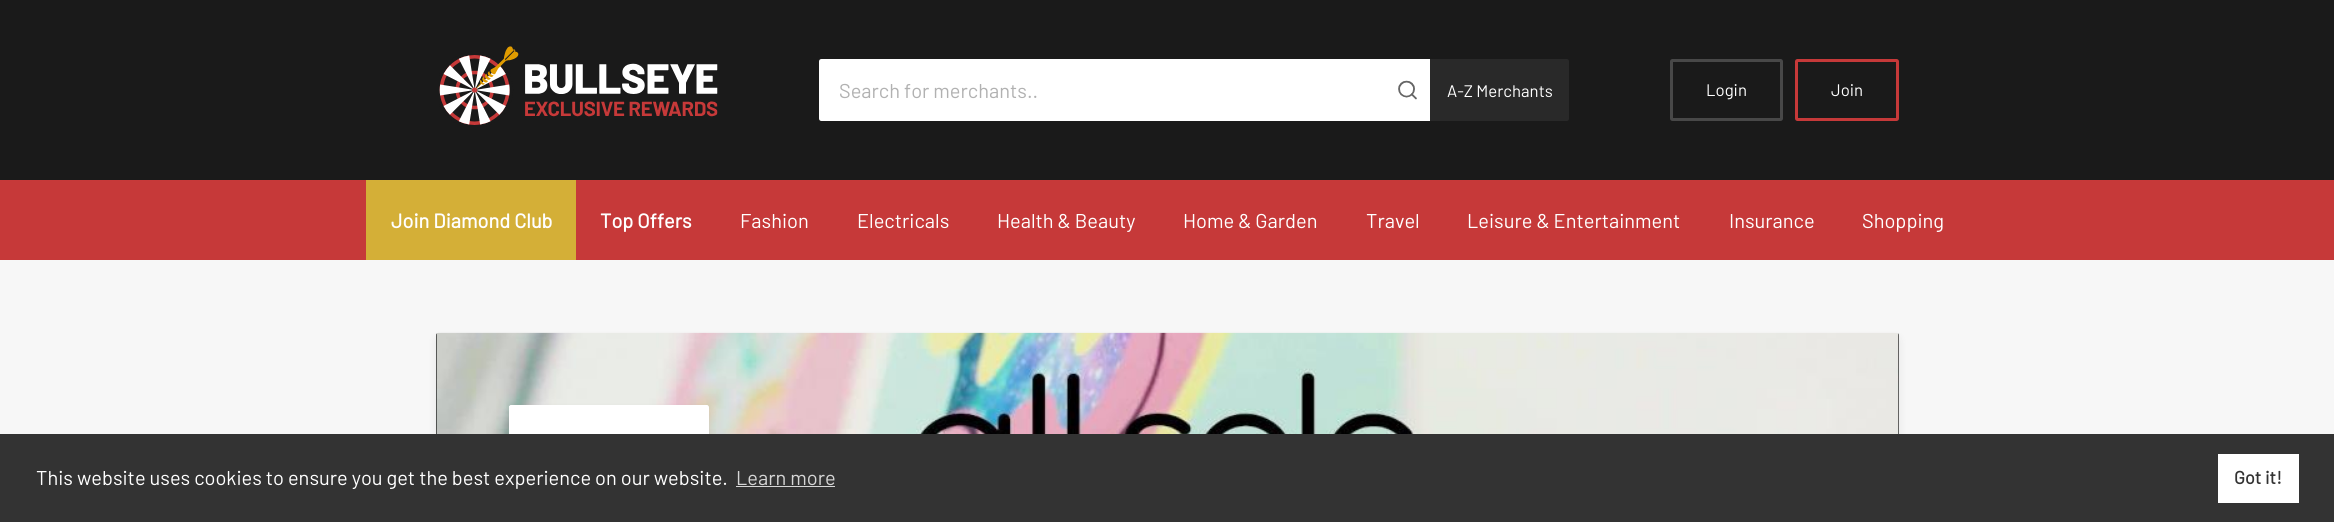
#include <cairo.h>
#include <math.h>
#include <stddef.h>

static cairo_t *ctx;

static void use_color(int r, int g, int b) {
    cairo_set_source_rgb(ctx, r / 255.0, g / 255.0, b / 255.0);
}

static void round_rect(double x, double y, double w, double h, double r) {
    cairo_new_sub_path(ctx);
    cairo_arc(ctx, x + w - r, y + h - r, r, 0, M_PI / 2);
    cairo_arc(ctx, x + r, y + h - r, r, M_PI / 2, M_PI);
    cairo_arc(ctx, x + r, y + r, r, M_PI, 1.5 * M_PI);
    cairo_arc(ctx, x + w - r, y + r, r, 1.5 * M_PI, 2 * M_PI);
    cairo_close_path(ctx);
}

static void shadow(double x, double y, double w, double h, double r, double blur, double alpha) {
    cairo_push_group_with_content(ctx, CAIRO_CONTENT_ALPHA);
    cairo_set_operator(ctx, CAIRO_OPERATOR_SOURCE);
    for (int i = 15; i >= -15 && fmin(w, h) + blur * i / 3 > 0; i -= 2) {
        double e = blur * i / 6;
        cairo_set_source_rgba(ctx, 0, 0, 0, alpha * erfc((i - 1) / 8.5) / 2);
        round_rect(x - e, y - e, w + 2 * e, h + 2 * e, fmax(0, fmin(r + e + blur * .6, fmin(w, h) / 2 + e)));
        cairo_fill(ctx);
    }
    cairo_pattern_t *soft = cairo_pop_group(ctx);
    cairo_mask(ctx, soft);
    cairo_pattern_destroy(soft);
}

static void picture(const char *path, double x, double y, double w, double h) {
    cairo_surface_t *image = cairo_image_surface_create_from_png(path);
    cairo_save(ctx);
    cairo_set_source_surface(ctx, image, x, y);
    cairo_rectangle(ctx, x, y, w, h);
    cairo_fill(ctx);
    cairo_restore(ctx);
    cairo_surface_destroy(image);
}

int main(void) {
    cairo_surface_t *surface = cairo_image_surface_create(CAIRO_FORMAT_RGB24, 2334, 522);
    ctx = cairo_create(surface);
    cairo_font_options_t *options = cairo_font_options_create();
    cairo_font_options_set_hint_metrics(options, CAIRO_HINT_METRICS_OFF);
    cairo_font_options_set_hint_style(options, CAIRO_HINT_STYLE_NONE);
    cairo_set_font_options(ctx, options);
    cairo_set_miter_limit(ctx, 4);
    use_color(247, 247, 247);
    cairo_paint(ctx);
    use_color(26, 26, 26);
    cairo_rectangle(ctx, 0, 0, 2334, 180);
    cairo_fill(ctx);
    picture("img1.png", 439, 46, 279, 79);
    use_color(255, 255, 255);
    cairo_new_path(ctx);
    cairo_move_to(ctx, 821.5, 59);
    cairo_line_to(ctx, 1384, 59);
    cairo_line_to(ctx, 1384, 121);
    cairo_line_to(ctx, 821.5, 121);
    cairo_curve_to(ctx, 820, 121, 819, 120, 819, 118.5);
    cairo_line_to(ctx, 819, 61.5);
    cairo_curve_to(ctx, 819, 60, 820, 59, 821.5, 59);
    cairo_close_path(ctx);
    cairo_fill(ctx);
    cairo_select_font_face(ctx, "Barlow", CAIRO_FONT_SLANT_NORMAL, CAIRO_FONT_WEIGHT_NORMAL);
    cairo_set_font_size(ctx, 20);
    use_color(177, 177, 177);
    cairo_move_to(ctx, 839, 98);
    cairo_show_text(ctx, "Search for merchants..");
    use_color(255, 255, 255);
    cairo_rectangle(ctx, 1384, 59, 46, 62);
    cairo_fill(ctx);
    picture("img2.png", 1398, 80, 19, 20);
    use_color(41, 41, 41);
    cairo_new_path(ctx);
    cairo_move_to(ctx, 1430, 59);
    cairo_line_to(ctx, 1566.5, 59);
    cairo_curve_to(ctx, 1568, 59, 1569, 60, 1569, 61.5);
    cairo_line_to(ctx, 1569, 118.5);
    cairo_curve_to(ctx, 1569, 120, 1568, 121, 1566.5, 121);
    cairo_line_to(ctx, 1430, 121);
    cairo_close_path(ctx);
    cairo_fill(ctx);
    cairo_set_font_size(ctx, 16.75);
    use_color(255, 255, 255);
    cairo_move_to(ctx, 1447, 97);
    cairo_show_text(ctx, "A-Z Merchants");
    round_rect(1671.5, 60.5, 110, 59, 1);
    use_color(72, 72, 72);
    cairo_set_line_width(ctx, 3);
    cairo_stroke(ctx);
    use_color(255, 255, 255);
    cairo_move_to(ctx, 1706, 96);
    cairo_show_text(ctx, "Login");
    round_rect(1796.5, 60.5, 101, 59, 1);
    use_color(198, 57, 57);
    cairo_stroke(ctx);
    use_color(255, 255, 255);
    cairo_move_to(ctx, 1831, 96);
    cairo_show_text(ctx, "Join");
    use_color(198, 57, 57);
    cairo_rectangle(ctx, 0, 180, 2334, 80);
    cairo_fill(ctx);
    use_color(212, 175, 55);
    cairo_rectangle(ctx, 366, 180, 210, 80);
    cairo_fill(ctx);
    cairo_select_font_face(ctx, "Barlow", CAIRO_FONT_SLANT_NORMAL, CAIRO_FONT_WEIGHT_BOLD);
    cairo_set_font_size(ctx, 20);
    use_color(255, 255, 255);
    cairo_move_to(ctx, 391, 228);
    cairo_show_text(ctx, "Join Diamond Club");
    cairo_move_to(ctx, 600, 228);
    cairo_show_text(ctx, "Top Offers");
    cairo_select_font_face(ctx, "Barlow", CAIRO_FONT_SLANT_NORMAL, CAIRO_FONT_WEIGHT_NORMAL);
    cairo_move_to(ctx, 740, 228);
    cairo_show_text(ctx, "Fashion");
    cairo_move_to(ctx, 857, 228);
    cairo_show_text(ctx, "Electricals");
    cairo_move_to(ctx, 997, 228);
    cairo_show_text(ctx, "Health & Beauty");
    cairo_move_to(ctx, 1183, 228);
    cairo_show_text(ctx, "Home & Garden");
    cairo_move_to(ctx, 1366, 228);
    cairo_show_text(ctx, "Travel");
    cairo_move_to(ctx, 1467, 228);
    cairo_show_text(ctx, "Leisure & Entertainment");
    cairo_move_to(ctx, 1729, 228);
    cairo_show_text(ctx, "Insurance");
    cairo_move_to(ctx, 1862, 228);
    cairo_show_text(ctx, "Shopping");
    use_color(0, 0, 0);
    shadow(436, 338, 1463, 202, 2.5, 5, 0.07);
    use_color(0, 0, 0);
    cairo_new_path(ctx);
    cairo_move_to(ctx, 438.5, 333);
    cairo_line_to(ctx, 1896.5, 333);
    cairo_curve_to(ctx, 1898, 333, 1899, 334, 1899, 335.5);
    cairo_line_to(ctx, 1899, 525);
    cairo_line_to(ctx, 436, 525);
    cairo_line_to(ctx, 436, 335.5);
    cairo_curve_to(ctx, 436, 334, 437, 333, 438.5, 333);
    cairo_close_path(ctx);
    cairo_fill(ctx);
    picture("img3.png", 436, 332, 1463, 102);
    use_color(0, 0, 0);
    shadow(509, 410, 200, 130, 2.5, 5, 0.07);
    use_color(255, 255, 255);
    round_rect(509, 405, 200, 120, 2.5);
    cairo_fill(ctx);
    picture("img4.png", 509, 405, 200, 29);
    use_color(51, 51, 51);
    cairo_rectangle(ctx, 0, 434, 2334, 88);
    cairo_fill(ctx);
    use_color(255, 255, 255);
    cairo_move_to(ctx, 36, 485);
    cairo_show_text(ctx, "This website uses cookies to ensure you get the best experience on our website.");
    use_color(214, 214, 214);
    cairo_move_to(ctx, 736, 485);
    cairo_show_text(ctx, "Learn more");
    cairo_rectangle(ctx, 736, 486, 99, 1);
    cairo_fill(ctx);
    use_color(255, 255, 255);
    cairo_rectangle(ctx, 2218, 454, 81, 49);
    cairo_fill(ctx);
    cairo_select_font_face(ctx, "Barlow", CAIRO_FONT_SLANT_NORMAL, CAIRO_FONT_WEIGHT_BOLD);
    cairo_set_font_size(ctx, 18);
    use_color(51, 51, 51);
    cairo_move_to(ctx, 2234, 484);
    cairo_show_text(ctx, "Got it!");
    cairo_surface_write_to_png(surface, "result.png");
    cairo_font_options_destroy(options);
    cairo_destroy(ctx);
    cairo_surface_destroy(surface);
    return 0;
}
